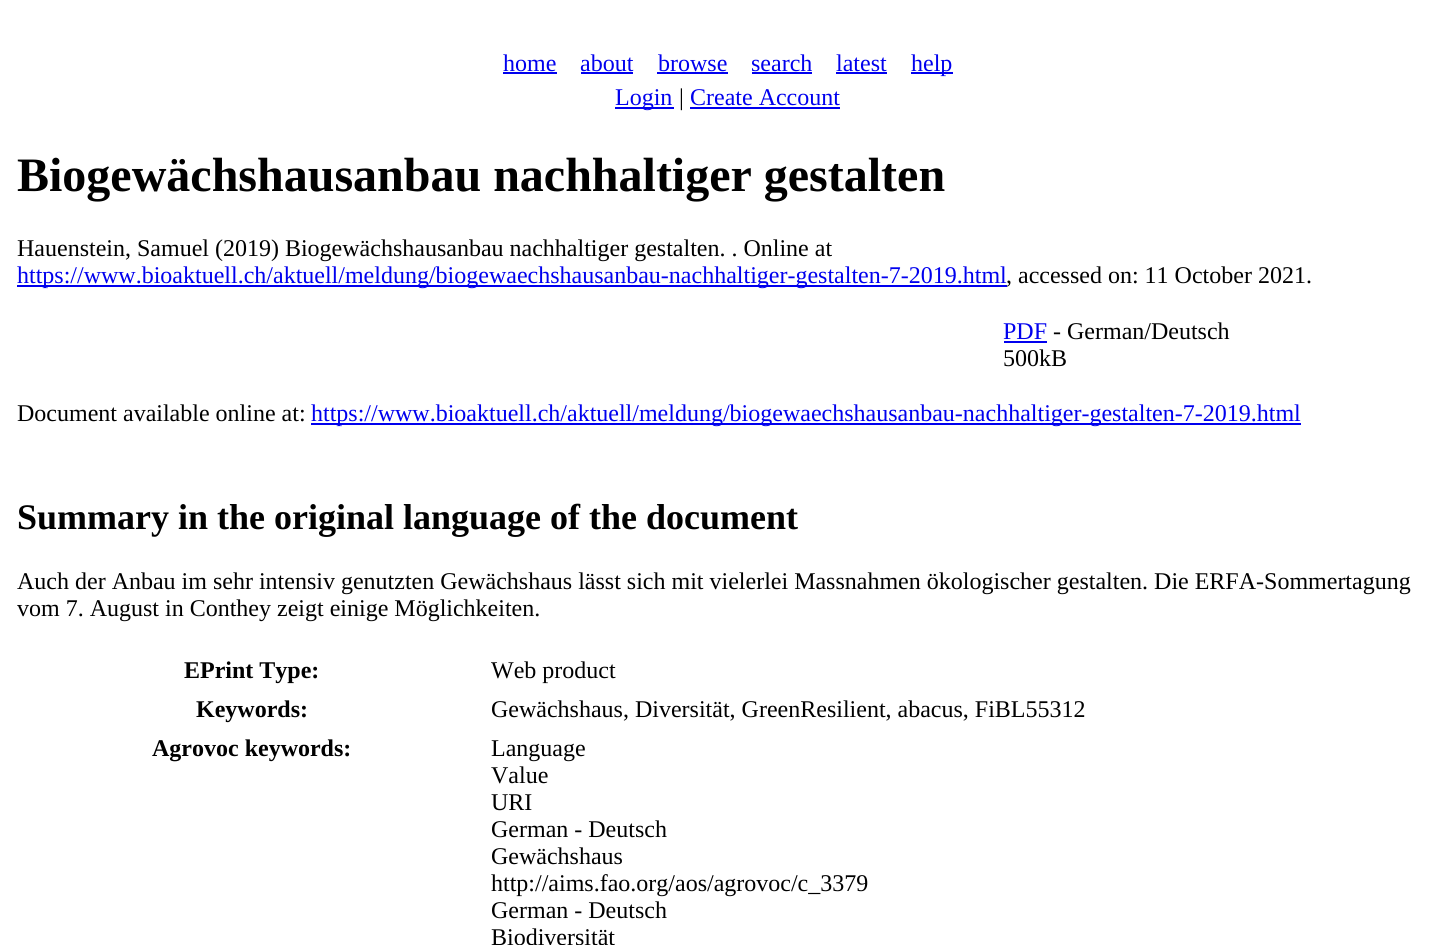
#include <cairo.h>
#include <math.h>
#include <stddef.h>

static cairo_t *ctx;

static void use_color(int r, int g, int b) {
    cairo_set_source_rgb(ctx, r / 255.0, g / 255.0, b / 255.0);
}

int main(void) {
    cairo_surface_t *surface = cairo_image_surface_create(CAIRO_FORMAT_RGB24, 1455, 945);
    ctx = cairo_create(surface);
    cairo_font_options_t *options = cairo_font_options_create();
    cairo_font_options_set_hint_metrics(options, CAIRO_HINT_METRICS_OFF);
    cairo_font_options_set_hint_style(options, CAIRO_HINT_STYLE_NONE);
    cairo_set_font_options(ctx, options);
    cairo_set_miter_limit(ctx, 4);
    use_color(255, 255, 255);
    cairo_paint(ctx);
    cairo_select_font_face(ctx, "Liberation Serif", CAIRO_FONT_SLANT_NORMAL, CAIRO_FONT_WEIGHT_NORMAL);
    cairo_set_font_size(ctx, 24);
    use_color(0, 0, 238);
    cairo_move_to(ctx, 503, 71);
    cairo_show_text(ctx, "home");
    cairo_rectangle(ctx, 503, 72, 54, 2);
    cairo_fill(ctx);
    cairo_move_to(ctx, 580, 71);
    cairo_show_text(ctx, "about");
    cairo_rectangle(ctx, 581, 72, 52, 2);
    cairo_fill(ctx);
    cairo_move_to(ctx, 658, 71);
    cairo_show_text(ctx, "browse");
    cairo_rectangle(ctx, 657, 72, 71, 2);
    cairo_fill(ctx);
    cairo_move_to(ctx, 751, 71);
    cairo_show_text(ctx, "search");
    cairo_rectangle(ctx, 752, 72, 60, 2);
    cairo_fill(ctx);
    cairo_move_to(ctx, 836, 71);
    cairo_show_text(ctx, "latest");
    cairo_rectangle(ctx, 836, 72, 51, 2);
    cairo_fill(ctx);
    cairo_rectangle(ctx, 911, 72, 42, 2);
    cairo_fill(ctx);
    cairo_move_to(ctx, 911, 71);
    cairo_show_text(ctx, "help");
    cairo_rectangle(ctx, 615, 107, 59, 2);
    cairo_fill(ctx);
    cairo_move_to(ctx, 615, 105);
    cairo_show_text(ctx, "Login");
    use_color(0, 0, 0);
    cairo_move_to(ctx, 679, 105);
    cairo_show_text(ctx, "|");
    use_color(0, 0, 238);
    cairo_move_to(ctx, 690, 105);
    cairo_show_text(ctx, "Create Account");
    cairo_rectangle(ctx, 690, 107, 150, 2);
    cairo_fill(ctx);
    cairo_select_font_face(ctx, "Liberation Serif", CAIRO_FONT_SLANT_NORMAL, CAIRO_FONT_WEIGHT_BOLD);
    cairo_set_font_size(ctx, 48);
    use_color(0, 0, 0);
    cairo_move_to(ctx, 17, 191);
    cairo_show_text(ctx, "Biogewächshausanbau nachhaltiger gestalten");
    cairo_select_font_face(ctx, "Liberation Serif", CAIRO_FONT_SLANT_NORMAL, CAIRO_FONT_WEIGHT_NORMAL);
    cairo_set_font_size(ctx, 24);
    cairo_move_to(ctx, 17, 256);
    cairo_show_text(ctx, "Hauenstein, Samuel (2019) Biogewächshausanbau nachhaltiger gestalten. . Online at");
    use_color(0, 0, 238);
    cairo_rectangle(ctx, 17, 285, 990, 2);
    cairo_fill(ctx);
    cairo_move_to(ctx, 17, 283);
    cairo_show_text(ctx, "https://www.bioaktuell.ch/aktuell/meldung/biogewaechshausanbau-nachhaltiger-gestalten-7-2019.html");
    use_color(0, 0, 0);
    cairo_move_to(ctx, 1006, 283);
    cairo_show_text(ctx, ", accessed on: 11 October 2021.");
    use_color(0, 0, 238);
    cairo_move_to(ctx, 1003, 339);
    cairo_show_text(ctx, "PDF");
    cairo_rectangle(ctx, 1004, 341, 43, 2);
    cairo_fill(ctx);
    use_color(0, 0, 0);
    cairo_move_to(ctx, 1053, 339);
    cairo_show_text(ctx, "- German/Deutsch");
    cairo_move_to(ctx, 1003, 366);
    cairo_show_text(ctx, "500kB");
    cairo_move_to(ctx, 17, 421);
    cairo_show_text(ctx, "Document available online at:");
    use_color(0, 0, 238);
    cairo_rectangle(ctx, 311, 423, 990, 2);
    cairo_fill(ctx);
    cairo_move_to(ctx, 311, 421);
    cairo_show_text(ctx, "https://www.bioaktuell.ch/aktuell/meldung/biogewaechshausanbau-nachhaltiger-gestalten-7-2019.html");
    cairo_select_font_face(ctx, "Liberation Serif", CAIRO_FONT_SLANT_NORMAL, CAIRO_FONT_WEIGHT_BOLD);
    cairo_set_font_size(ctx, 36);
    use_color(0, 0, 0);
    cairo_move_to(ctx, 17, 529);
    cairo_show_text(ctx, "Summary in the original language of the document");
    cairo_select_font_face(ctx, "Liberation Serif", CAIRO_FONT_SLANT_NORMAL, CAIRO_FONT_WEIGHT_NORMAL);
    cairo_set_font_size(ctx, 24);
    cairo_move_to(ctx, 17, 589);
    cairo_show_text(ctx, "Auch der Anbau im sehr intensiv genutzten Gewächshaus lässt sich mit vielerlei Massnahmen ökologischer gestalten. Die ERFA-Sommertagung");
    cairo_move_to(ctx, 17, 616);
    cairo_show_text(ctx, "vom 7. August in Conthey zeigt einige Möglichkeiten.");
    cairo_select_font_face(ctx, "Liberation Serif", CAIRO_FONT_SLANT_NORMAL, CAIRO_FONT_WEIGHT_BOLD);
    cairo_move_to(ctx, 184, 678);
    cairo_show_text(ctx, "EPrint Type:");
    cairo_select_font_face(ctx, "Liberation Serif", CAIRO_FONT_SLANT_NORMAL, CAIRO_FONT_WEIGHT_NORMAL);
    cairo_move_to(ctx, 491, 678);
    cairo_show_text(ctx, "Web product");
    cairo_select_font_face(ctx, "Liberation Serif", CAIRO_FONT_SLANT_NORMAL, CAIRO_FONT_WEIGHT_BOLD);
    cairo_move_to(ctx, 196, 717);
    cairo_show_text(ctx, "Keywords:");
    cairo_select_font_face(ctx, "Liberation Serif", CAIRO_FONT_SLANT_NORMAL, CAIRO_FONT_WEIGHT_NORMAL);
    cairo_move_to(ctx, 491, 717);
    cairo_show_text(ctx, "Gewächshaus, Diversität, GreenResilient, abacus, FiBL55312");
    cairo_select_font_face(ctx, "Liberation Serif", CAIRO_FONT_SLANT_NORMAL, CAIRO_FONT_WEIGHT_BOLD);
    cairo_move_to(ctx, 152, 756);
    cairo_show_text(ctx, "Agrovoc keywords:");
    cairo_select_font_face(ctx, "Liberation Serif", CAIRO_FONT_SLANT_NORMAL, CAIRO_FONT_WEIGHT_NORMAL);
    cairo_move_to(ctx, 491, 756);
    cairo_show_text(ctx, "Language");
    cairo_move_to(ctx, 491, 783);
    cairo_show_text(ctx, "Value");
    cairo_move_to(ctx, 491, 810);
    cairo_show_text(ctx, "URI");
    cairo_move_to(ctx, 491, 837);
    cairo_show_text(ctx, "German - Deutsch");
    cairo_move_to(ctx, 491, 864);
    cairo_show_text(ctx, "Gewächshaus");
    cairo_move_to(ctx, 491, 891);
    cairo_show_text(ctx, "http://aims.fao.org/aos/agrovoc/c_3379");
    cairo_move_to(ctx, 491, 918);
    cairo_show_text(ctx, "German - Deutsch");
    cairo_move_to(ctx, 491, 945);
    cairo_show_text(ctx, "Biodiversität");
    cairo_surface_write_to_png(surface, "result.png");
    cairo_font_options_destroy(options);
    cairo_destroy(ctx);
    cairo_surface_destroy(surface);
    return 0;
}
